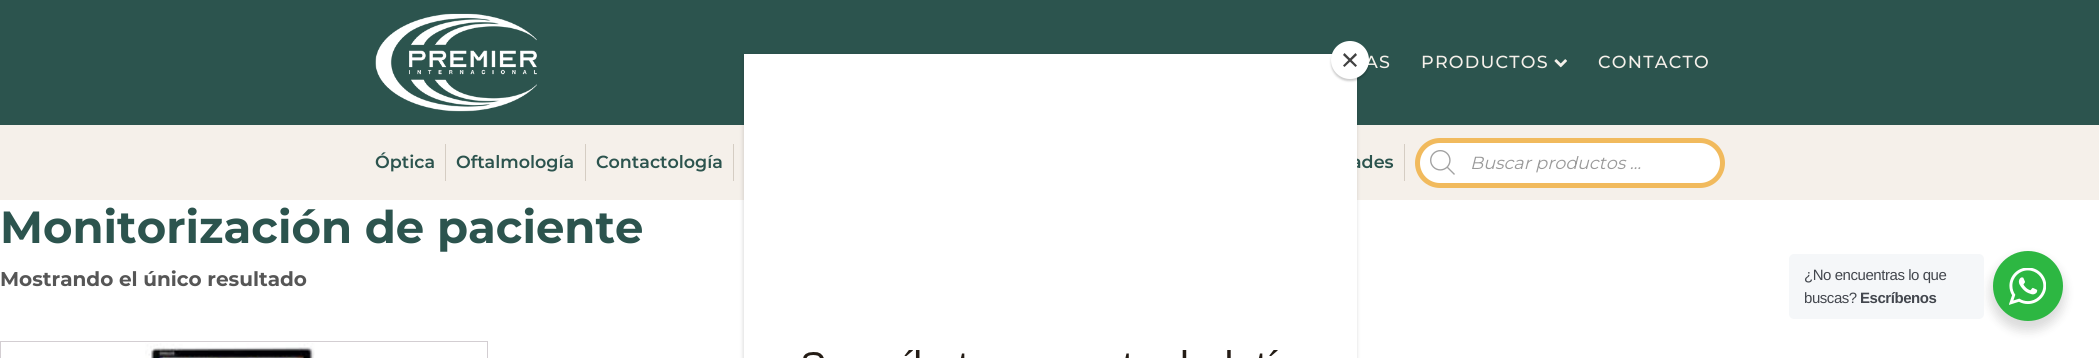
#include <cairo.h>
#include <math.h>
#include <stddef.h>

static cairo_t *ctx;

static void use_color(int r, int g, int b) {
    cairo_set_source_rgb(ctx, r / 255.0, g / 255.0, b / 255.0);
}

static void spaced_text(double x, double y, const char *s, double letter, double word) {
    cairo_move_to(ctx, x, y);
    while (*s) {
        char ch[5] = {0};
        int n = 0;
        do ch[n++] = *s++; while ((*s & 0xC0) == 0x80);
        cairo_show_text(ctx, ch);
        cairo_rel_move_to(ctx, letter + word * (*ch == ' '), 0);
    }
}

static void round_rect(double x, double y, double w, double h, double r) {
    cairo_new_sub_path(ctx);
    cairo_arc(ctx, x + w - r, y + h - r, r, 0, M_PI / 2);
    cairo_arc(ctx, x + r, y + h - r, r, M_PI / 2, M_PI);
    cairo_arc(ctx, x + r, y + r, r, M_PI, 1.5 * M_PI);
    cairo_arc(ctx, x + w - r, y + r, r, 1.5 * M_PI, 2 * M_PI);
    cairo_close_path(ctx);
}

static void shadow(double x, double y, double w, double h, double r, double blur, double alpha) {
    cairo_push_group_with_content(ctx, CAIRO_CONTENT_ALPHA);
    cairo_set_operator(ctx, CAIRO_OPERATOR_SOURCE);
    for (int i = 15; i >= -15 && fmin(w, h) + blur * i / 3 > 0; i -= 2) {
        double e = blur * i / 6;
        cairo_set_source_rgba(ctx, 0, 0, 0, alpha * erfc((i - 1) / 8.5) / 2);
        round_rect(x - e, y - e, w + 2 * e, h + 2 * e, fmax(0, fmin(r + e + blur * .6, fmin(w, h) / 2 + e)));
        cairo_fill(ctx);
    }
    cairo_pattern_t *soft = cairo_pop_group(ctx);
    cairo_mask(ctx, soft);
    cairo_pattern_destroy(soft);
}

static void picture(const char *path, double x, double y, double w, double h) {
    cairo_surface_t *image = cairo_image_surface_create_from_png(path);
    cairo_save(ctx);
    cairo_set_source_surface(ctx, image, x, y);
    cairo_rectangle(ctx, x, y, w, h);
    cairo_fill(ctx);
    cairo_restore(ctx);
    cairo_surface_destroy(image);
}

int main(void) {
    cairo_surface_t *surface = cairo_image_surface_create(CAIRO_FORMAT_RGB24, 2099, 358);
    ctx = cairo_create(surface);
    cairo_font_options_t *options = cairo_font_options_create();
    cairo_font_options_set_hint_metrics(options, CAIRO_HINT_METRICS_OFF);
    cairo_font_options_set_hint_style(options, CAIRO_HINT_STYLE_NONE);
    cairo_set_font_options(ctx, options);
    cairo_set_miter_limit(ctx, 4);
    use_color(255, 255, 255);
    cairo_paint(ctx);
    use_color(44, 84, 78);
    cairo_rectangle(ctx, 0, 0, 2099, 125);
    cairo_fill(ctx);
    use_color(245, 240, 234);
    cairo_rectangle(ctx, 0, 125, 2099, 75);
    cairo_fill(ctx);
    use_color(0, 0, 0);
    shadow(744, 56, 612, 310, 0, 2.5, 0.2);
    cairo_select_font_face(ctx, "Montserrat SemiBold", CAIRO_FONT_SLANT_NORMAL, CAIRO_FONT_WEIGHT_NORMAL);
    cairo_set_font_size(ctx, 17.5);
    use_color(44, 84, 78);
    cairo_move_to(ctx, 1351, 168);
    cairo_show_text(ctx, "ades");
    picture("img1.png", 744, 54, 613, 304);
    use_color(0, 0, 0);
    shadow(1331, 44, 38, 37, 18.5, 1, 0.2);
    cairo_select_font_face(ctx, "Montserrat Medium", CAIRO_FONT_SLANT_NORMAL, CAIRO_FONT_WEIGHT_NORMAL);
    use_color(245, 240, 234);
    spaced_text(1365, 68, "AS", 1.25, 0);
    use_color(255, 255, 255);
    cairo_new_path(ctx);
    cairo_arc(ctx, 1350, 60, 19, 0, 2 * M_PI);
    cairo_fill(ctx);
    use_color(65, 65, 65);
    cairo_new_path(ctx);
    cairo_move_to(ctx, 1355.5, 53);
    cairo_line_to(ctx, 1357, 55);
    cairo_line_to(ctx, 1344.5, 67);
    cairo_line_to(ctx, 1343, 65.5);
    cairo_close_path(ctx);
    cairo_fill(ctx);
    cairo_new_path(ctx);
    cairo_move_to(ctx, 1343, 55);
    cairo_line_to(ctx, 1344.5, 53);
    cairo_line_to(ctx, 1357, 65.5);
    cairo_line_to(ctx, 1355.5, 67);
    cairo_close_path(ctx);
    cairo_fill(ctx);
    picture("img2.png", 375, 13, 162, 99);
    use_color(245, 240, 234);
    spaced_text(1421, 68, "PRODUCTOS", 1.25, 0);
    picture("img3.png", 1554, 59, 13, 9);
    spaced_text(1598, 68, "CONTACTO", 1.25, 0);
    use_color(213, 205, 195);
    cairo_rectangle(ctx, 445, 144, 1, 37);
    cairo_fill(ctx);
    cairo_select_font_face(ctx, "Montserrat SemiBold", CAIRO_FONT_SLANT_NORMAL, CAIRO_FONT_WEIGHT_NORMAL);
    use_color(44, 84, 78);
    cairo_move_to(ctx, 375, 168);
    cairo_show_text(ctx, "Óptica");
    use_color(213, 205, 195);
    cairo_rectangle(ctx, 585, 144, 1, 37);
    cairo_fill(ctx);
    use_color(44, 84, 78);
    cairo_move_to(ctx, 456, 168);
    cairo_show_text(ctx, "Oftalmología");
    use_color(213, 205, 195);
    cairo_rectangle(ctx, 733, 144, 1, 37);
    cairo_fill(ctx);
    use_color(44, 84, 78);
    cairo_move_to(ctx, 596, 168);
    cairo_show_text(ctx, "Contactología");
    use_color(213, 205, 195);
    cairo_rectangle(ctx, 1404, 144, 1, 37);
    cairo_fill(ctx);
    use_color(255, 255, 255);
    round_rect(1417.5, 140.5, 305, 45, 22.5);
    cairo_fill_preserve(ctx);
    use_color(241, 186, 93);
    cairo_set_line_width(ctx, 5);
    cairo_stroke(ctx);
    picture("img4.png", 1430, 150, 25, 25);
    cairo_select_font_face(ctx, "Montserrat", CAIRO_FONT_SLANT_ITALIC, CAIRO_FONT_WEIGHT_NORMAL);
    use_color(153, 153, 153);
    cairo_move_to(ctx, 1470, 169);
    cairo_show_text(ctx, "Buscar productos ...");
    cairo_select_font_face(ctx, "Montserrat", CAIRO_FONT_SLANT_NORMAL, CAIRO_FONT_WEIGHT_BOLD);
    cairo_set_font_size(ctx, 45);
    use_color(44, 84, 78);
    cairo_move_to(ctx, 0, 243);
    cairo_show_text(ctx, "Monitorización de paciente");
    cairo_set_font_size(ctx, 20);
    use_color(86, 86, 86);
    cairo_move_to(ctx, 0, 286);
    cairo_show_text(ctx, "Mostrando el único resultado");
    cairo_rectangle(ctx, 0.5, 341.5, 487, 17);
    use_color(211, 206, 210);
    cairo_set_line_width(ctx, 1);
    cairo_stroke(ctx);
    picture("img5.png", 145, 343, 170, 15);
    use_color(0, 0, 0);
    shadow(1990, 256, 75, 75, 37.5, 5, 0.14);
    use_color(245, 247, 249);
    round_rect(1789, 254, 195, 65, 5);
    cairo_fill(ctx);
    cairo_select_font_face(ctx, "Liberation Sans", CAIRO_FONT_SLANT_NORMAL, CAIRO_FONT_WEIGHT_NORMAL);
    cairo_set_font_size(ctx, 15);
    use_color(67, 71, 78);
    spaced_text(1804, 280, "¿No encuentras lo que", -0.45, 0);
    spaced_text(1804, 303, "buscas?", -0.45, 0);
    cairo_select_font_face(ctx, "Liberation Sans", CAIRO_FONT_SLANT_NORMAL, CAIRO_FONT_WEIGHT_BOLD);
    spaced_text(1860, 303, "Escríbenos", -0.45, 0);
    use_color(45, 183, 66);
    cairo_new_path(ctx);
    cairo_arc(ctx, 2028, 286, 35, 0, 2 * M_PI);
    cairo_fill(ctx);
    picture("img6.png", 2009, 268, 37, 37);
    cairo_surface_write_to_png(surface, "result.png");
    cairo_font_options_destroy(options);
    cairo_destroy(ctx);
    cairo_surface_destroy(surface);
    return 0;
}
